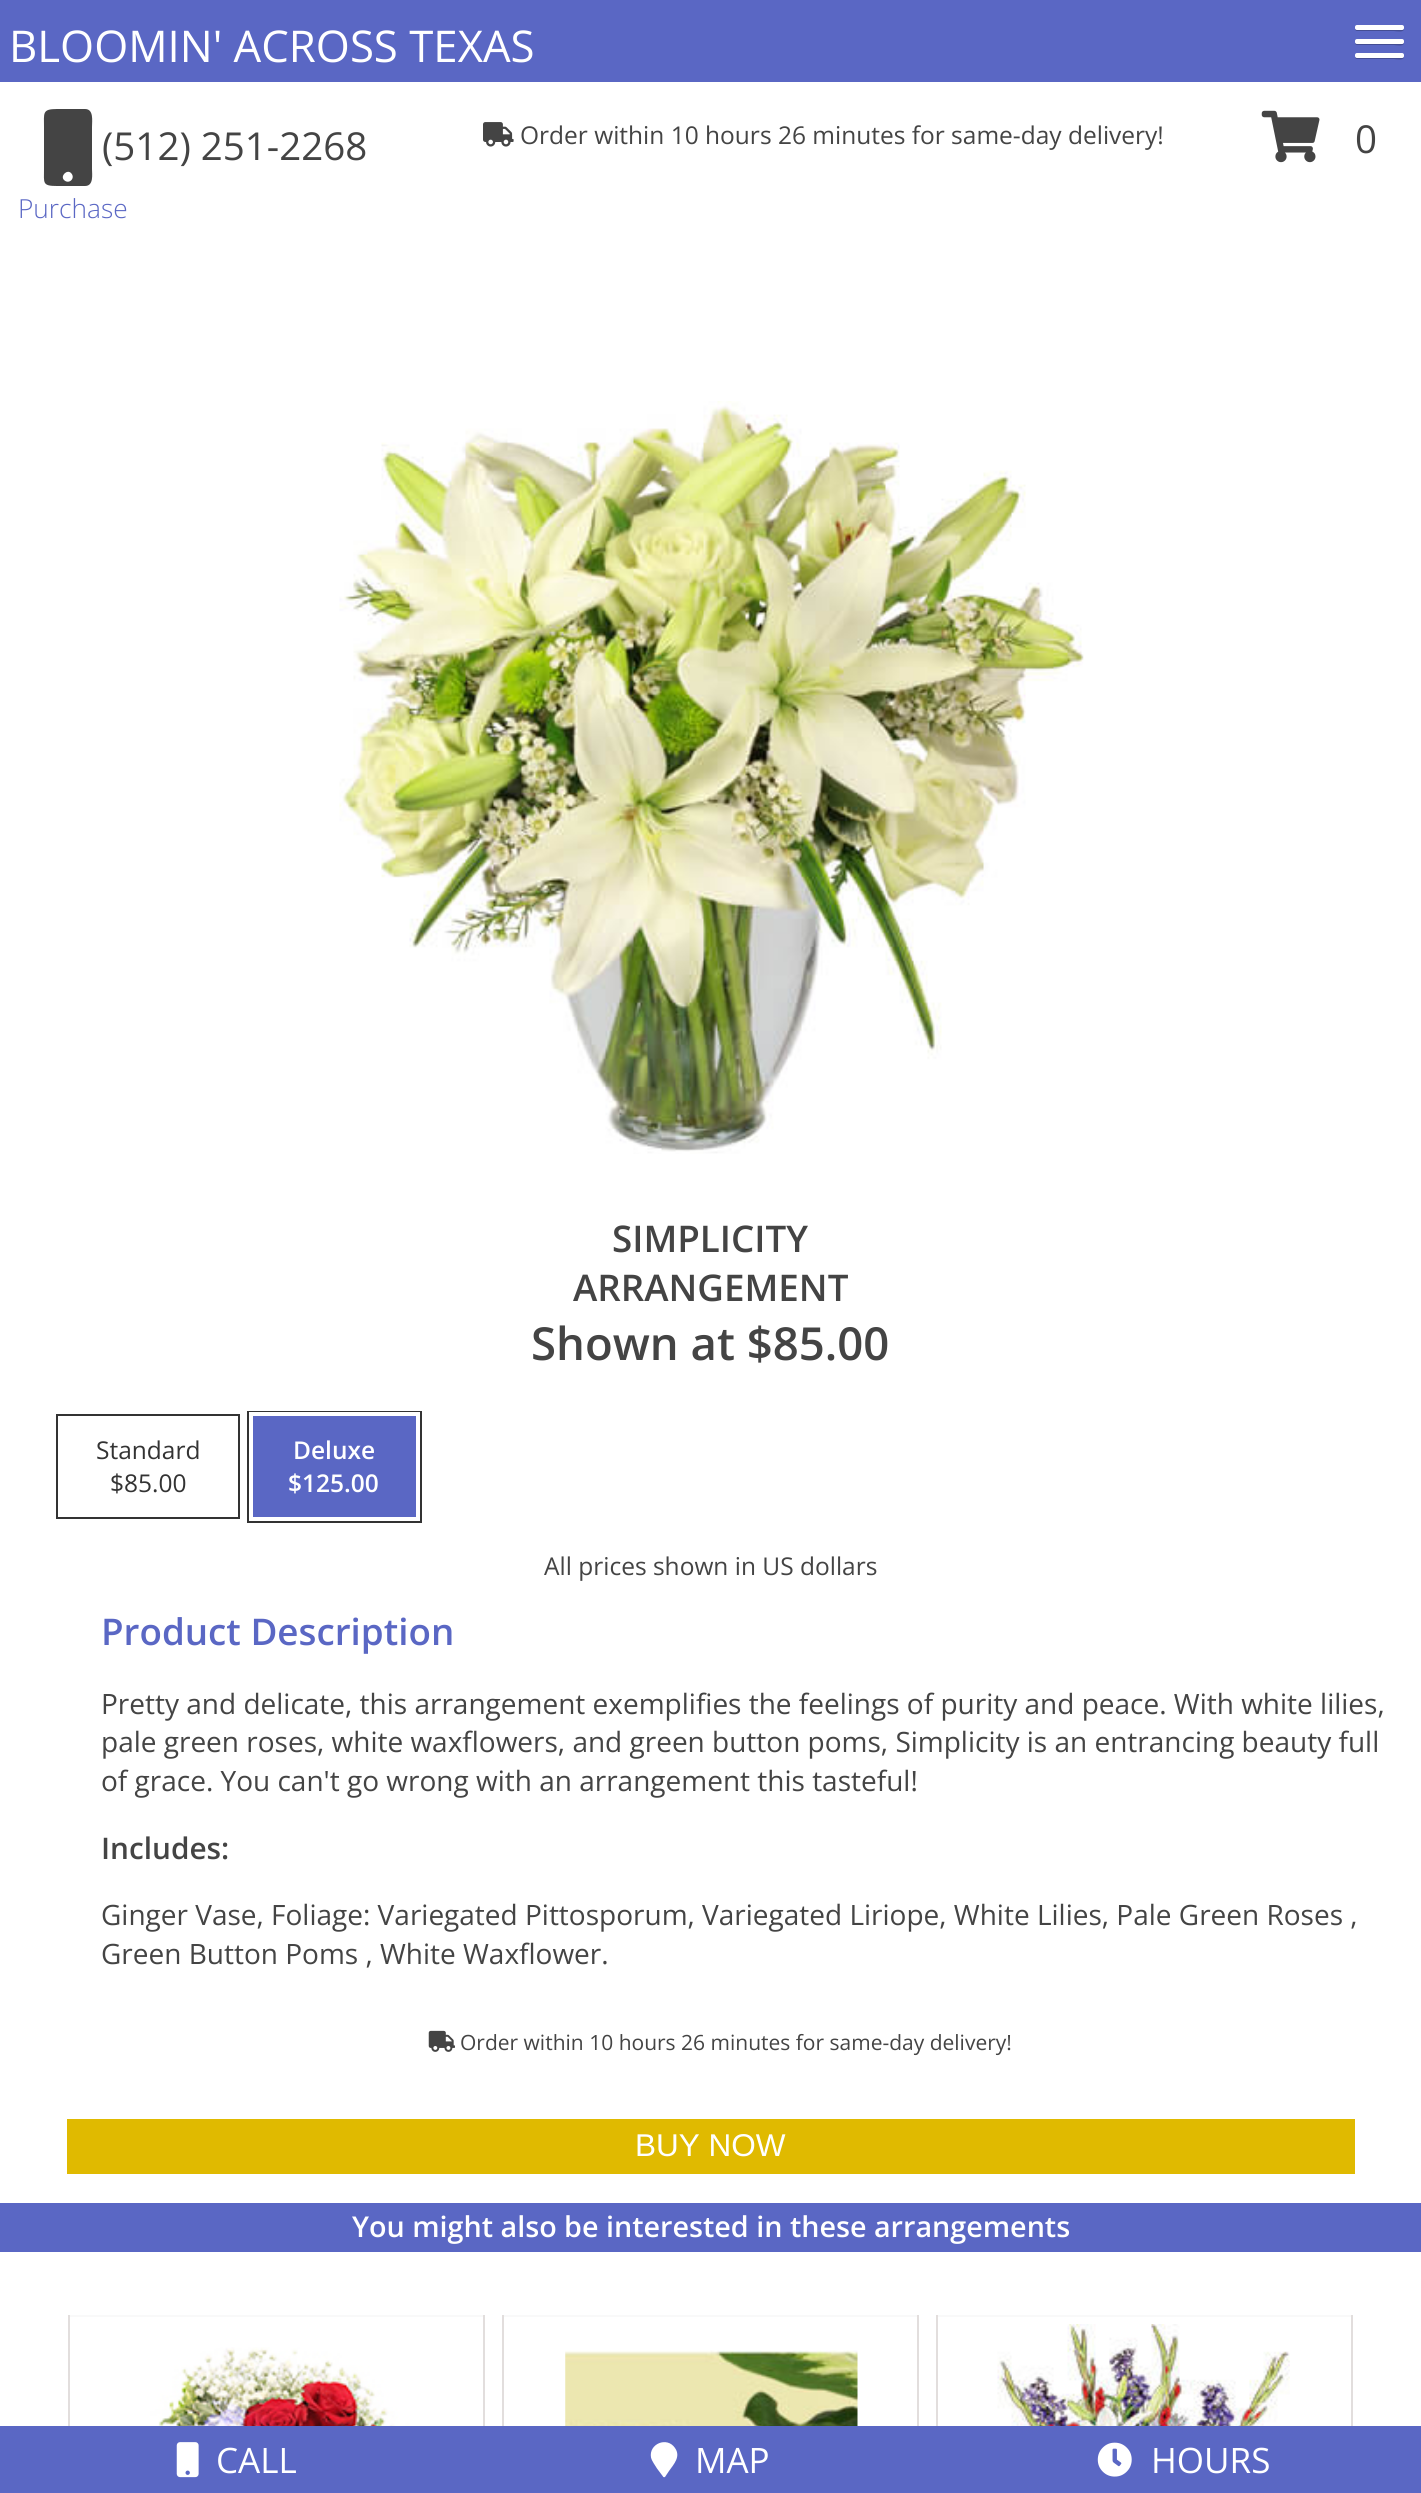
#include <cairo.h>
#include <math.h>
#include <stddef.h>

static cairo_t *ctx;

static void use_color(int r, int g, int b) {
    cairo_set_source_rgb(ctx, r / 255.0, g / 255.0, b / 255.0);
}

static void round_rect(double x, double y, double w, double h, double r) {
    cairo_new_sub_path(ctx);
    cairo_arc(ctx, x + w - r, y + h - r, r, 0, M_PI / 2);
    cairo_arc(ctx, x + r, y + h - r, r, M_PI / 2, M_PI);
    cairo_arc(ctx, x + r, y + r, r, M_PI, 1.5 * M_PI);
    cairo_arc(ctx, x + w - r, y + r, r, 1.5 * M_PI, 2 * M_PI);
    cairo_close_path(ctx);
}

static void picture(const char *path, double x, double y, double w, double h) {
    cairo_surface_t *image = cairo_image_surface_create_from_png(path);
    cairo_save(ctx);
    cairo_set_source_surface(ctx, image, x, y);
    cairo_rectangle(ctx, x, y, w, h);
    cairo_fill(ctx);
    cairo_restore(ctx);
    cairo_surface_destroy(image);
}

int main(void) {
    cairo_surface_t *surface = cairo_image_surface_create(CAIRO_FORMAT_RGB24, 1421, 2493);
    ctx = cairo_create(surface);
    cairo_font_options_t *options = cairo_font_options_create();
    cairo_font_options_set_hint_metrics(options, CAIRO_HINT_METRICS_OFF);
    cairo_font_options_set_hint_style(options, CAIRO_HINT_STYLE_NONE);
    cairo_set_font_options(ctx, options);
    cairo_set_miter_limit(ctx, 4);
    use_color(255, 255, 255);
    cairo_paint(ctx);
    use_color(90, 103, 196);
    cairo_rectangle(ctx, 0, 0, 1421, 82);
    cairo_fill(ctx);
    cairo_select_font_face(ctx, "Open Sans", CAIRO_FONT_SLANT_NORMAL, CAIRO_FONT_WEIGHT_NORMAL);
    cairo_set_font_size(ctx, 43.75);
    use_color(255, 255, 255);
    cairo_move_to(ctx, 9, 62);
    cairo_show_text(ctx, "BLOOMIN' ACROSS TEXAS");
    use_color(68, 77, 147);
    cairo_new_path(ctx);
    cairo_move_to(ctx, 1355, 29);
    cairo_curve_to(ctx, 1355, 30, 1356, 31, 1357, 31);
    cairo_line_to(ctx, 1394, 31);
    cairo_curve_to(ctx, 1395, 31, 1404, 33, 1404, 29);
    cairo_line_to(ctx, 1404, 27);
    cairo_curve_to(ctx, 1404, 28, 1404, 30, 1402, 30);
    cairo_curve_to(ctx, 1397, 30, 1356, 30, 1355, 29);
    cairo_close_path(ctx);
    cairo_fill(ctx);
    use_color(255, 255, 255);
    round_rect(1355, 25, 49, 5, 2);
    cairo_fill(ctx);
    use_color(68, 77, 147);
    cairo_new_path(ctx);
    cairo_move_to(ctx, 1355, 43);
    cairo_curve_to(ctx, 1355, 44, 1356, 45, 1357, 45);
    cairo_line_to(ctx, 1394, 45);
    cairo_curve_to(ctx, 1395, 45, 1404, 47, 1404, 43);
    cairo_line_to(ctx, 1404, 41);
    cairo_curve_to(ctx, 1404, 42, 1404, 44, 1402, 44);
    cairo_curve_to(ctx, 1397, 44, 1356, 44, 1355, 43);
    cairo_close_path(ctx);
    cairo_fill(ctx);
    use_color(255, 255, 255);
    round_rect(1355, 39, 49, 5, 2);
    cairo_fill(ctx);
    use_color(68, 77, 147);
    cairo_new_path(ctx);
    cairo_move_to(ctx, 1355, 57);
    cairo_curve_to(ctx, 1355, 58, 1356, 59, 1357, 59);
    cairo_line_to(ctx, 1394, 59);
    cairo_curve_to(ctx, 1395, 59, 1404, 61, 1404, 57);
    cairo_line_to(ctx, 1404, 55);
    cairo_curve_to(ctx, 1404, 56, 1404, 58, 1402, 58);
    cairo_curve_to(ctx, 1397, 58, 1356, 58, 1355, 57);
    cairo_close_path(ctx);
    cairo_fill(ctx);
    use_color(255, 255, 255);
    round_rect(1355, 53, 49, 5, 2);
    cairo_fill(ctx);
    use_color(68, 68, 68);
    cairo_new_path(ctx);
    cairo_move_to(ctx, 85, 109);
    cairo_curve_to(ctx, 94, 109, 92, 121, 92, 127);
    cairo_line_to(ctx, 92, 169);
    cairo_curve_to(ctx, 92, 174, 94, 186, 85, 186);
    cairo_line_to(ctx, 57, 186);
    cairo_curve_to(ctx, 42, 186, 44, 183, 44, 169);
    cairo_line_to(ctx, 44, 127);
    cairo_curve_to(ctx, 44, 113, 42, 109, 57, 109);
    cairo_close_path(ctx);
    cairo_move_to(ctx, 64, 180);
    cairo_curve_to(ctx, 69, 185, 76, 178, 71, 173);
    cairo_curve_to(ctx, 67, 169, 60, 176, 64, 180);
    cairo_close_path(ctx);
    cairo_fill(ctx);
    cairo_set_font_size(ctx, 38.5);
    cairo_move_to(ctx, 102, 160);
    cairo_show_text(ctx, "(512) 251-2268");
    picture("img1.png", 483, 122, 31, 25);
    cairo_set_font_size(ctx, 24.5);
    cairo_move_to(ctx, 520, 144);
    cairo_show_text(ctx, "Order within 10 hours 26 minutes for same-day delivery!");
    picture("img2.png", 1261, 110, 59, 53);
    cairo_set_font_size(ctx, 38.5);
    cairo_move_to(ctx, 1355, 153);
    cairo_show_text(ctx, "0");
    cairo_select_font_face(ctx, "Open Sans Light", CAIRO_FONT_SLANT_NORMAL, CAIRO_FONT_WEIGHT_NORMAL);
    cairo_set_font_size(ctx, 26.25);
    use_color(90, 103, 196);
    cairo_move_to(ctx, 18, 218);
    cairo_show_text(ctx, "Purchase");
    picture("img3.png", 339, 401, 745, 753);
    cairo_select_font_face(ctx, "Open Sans SemiBold", CAIRO_FONT_SLANT_NORMAL, CAIRO_FONT_WEIGHT_NORMAL);
    cairo_set_font_size(ctx, 36.75);
    use_color(68, 68, 68);
    cairo_move_to(ctx, 612, 1252);
    cairo_show_text(ctx, "SIMPLICITY");
    cairo_move_to(ctx, 573, 1301);
    cairo_show_text(ctx, "ARRANGEMENT");
    cairo_set_font_size(ctx, 45.5);
    cairo_move_to(ctx, 531, 1360);
    cairo_show_text(ctx, "Shown at $85.00");
    cairo_rectangle(ctx, 57, 1415, 182, 103);
    use_color(51, 51, 51);
    cairo_stroke(ctx);
    cairo_select_font_face(ctx, "Open Sans", CAIRO_FONT_SLANT_NORMAL, CAIRO_FONT_WEIGHT_NORMAL);
    cairo_set_font_size(ctx, 24.5);
    cairo_move_to(ctx, 96, 1459);
    cairo_show_text(ctx, "Standard");
    cairo_move_to(ctx, 110, 1492);
    cairo_show_text(ctx, "$85.00");
    cairo_rectangle(ctx, 248, 1412, 173, 110);
    cairo_stroke(ctx);
    use_color(90, 103, 196);
    cairo_rectangle(ctx, 251, 1414, 167, 105);
    cairo_fill_preserve(ctx);
    use_color(255, 255, 255);
    cairo_set_line_width(ctx, 4);
    cairo_stroke(ctx);
    cairo_select_font_face(ctx, "Open Sans SemiBold", CAIRO_FONT_SLANT_NORMAL, CAIRO_FONT_WEIGHT_NORMAL);
    cairo_move_to(ctx, 293, 1459);
    cairo_show_text(ctx, "Deluxe");
    cairo_move_to(ctx, 288, 1492);
    cairo_show_text(ctx, "$125.00");
    cairo_select_font_face(ctx, "Open Sans", CAIRO_FONT_SLANT_NORMAL, CAIRO_FONT_WEIGHT_NORMAL);
    use_color(68, 68, 68);
    cairo_move_to(ctx, 544, 1575);
    cairo_show_text(ctx, "All prices shown in US dollars");
    cairo_select_font_face(ctx, "Open Sans SemiBold", CAIRO_FONT_SLANT_NORMAL, CAIRO_FONT_WEIGHT_NORMAL);
    cairo_set_font_size(ctx, 36.75);
    use_color(90, 103, 196);
    cairo_move_to(ctx, 101, 1645);
    cairo_show_text(ctx, "Product Description");
    cairo_select_font_face(ctx, "Open Sans", CAIRO_FONT_SLANT_NORMAL, CAIRO_FONT_WEIGHT_NORMAL);
    cairo_set_font_size(ctx, 28);
    use_color(68, 68, 68);
    cairo_move_to(ctx, 101, 1714);
    cairo_show_text(ctx, "Pretty and delicate, this arrangement exemplifies the feelings of purity and peace. With white lilies,");
    cairo_move_to(ctx, 101, 1752);
    cairo_show_text(ctx, "pale green roses, white waxflowers, and green button poms, Simplicity is an entrancing beauty full");
    cairo_move_to(ctx, 101, 1791);
    cairo_show_text(ctx, "of grace. You can't go wrong with an arrangement this tasteful!");
    cairo_select_font_face(ctx, "Open Sans SemiBold", CAIRO_FONT_SLANT_NORMAL, CAIRO_FONT_WEIGHT_NORMAL);
    cairo_set_font_size(ctx, 29.75);
    cairo_move_to(ctx, 101, 1859);
    cairo_show_text(ctx, "Includes:");
    cairo_select_font_face(ctx, "Open Sans", CAIRO_FONT_SLANT_NORMAL, CAIRO_FONT_WEIGHT_NORMAL);
    cairo_set_font_size(ctx, 28);
    cairo_move_to(ctx, 101, 1925);
    cairo_show_text(ctx, "Ginger Vase, Foliage: Variegated Pittosporum, Variegated Liriope, White Lilies, Pale Green Roses ,");
    cairo_move_to(ctx, 101, 1964);
    cairo_show_text(ctx, "Green Button Poms , White Waxflower.");
    picture("img4.png", 428, 2030, 27, 22);
    cairo_set_font_size(ctx, 21);
    cairo_move_to(ctx, 460, 2050);
    cairo_show_text(ctx, "Order within 10 hours 26 minutes for same-day delivery!");
    use_color(224, 186, 0);
    cairo_rectangle(ctx, 67, 2119, 1288, 55);
    cairo_fill(ctx);
    cairo_select_font_face(ctx, "Liberation Sans", CAIRO_FONT_SLANT_NORMAL, CAIRO_FONT_WEIGHT_NORMAL);
    cairo_set_font_size(ctx, 31.5);
    use_color(255, 255, 255);
    cairo_move_to(ctx, 635, 2156);
    cairo_show_text(ctx, "BUY NOW");
    use_color(90, 103, 196);
    cairo_rectangle(ctx, 0, 2203, 1421, 49);
    cairo_fill(ctx);
    cairo_select_font_face(ctx, "Open Sans SemiBold", CAIRO_FONT_SLANT_NORMAL, CAIRO_FONT_WEIGHT_NORMAL);
    cairo_set_font_size(ctx, 28.7);
    use_color(255, 255, 255);
    cairo_move_to(ctx, 352, 2237);
    cairo_show_text(ctx, "You might also be interested in these arrangements");
    use_color(249, 249, 249);
    cairo_rectangle(ctx, 68, 2315, 417, 2);
    cairo_fill(ctx);
    use_color(226, 222, 221);
    cairo_rectangle(ctx, 483, 2315, 2, 111);
    cairo_fill(ctx);
    cairo_rectangle(ctx, 68, 2315, 2, 111);
    cairo_fill(ctx);
    picture("img5.png", 149, 2347, 271, 79);
    use_color(249, 249, 249);
    cairo_rectangle(ctx, 502, 2315, 417, 2);
    cairo_fill(ctx);
    use_color(226, 222, 221);
    cairo_rectangle(ctx, 917, 2315, 2, 111);
    cairo_fill(ctx);
    cairo_rectangle(ctx, 502, 2315, 2, 111);
    cairo_fill(ctx);
    picture("img6.png", 565, 2350, 293, 76);
    use_color(249, 249, 249);
    cairo_rectangle(ctx, 936, 2315, 417, 2);
    cairo_fill(ctx);
    use_color(226, 222, 221);
    cairo_rectangle(ctx, 1351, 2315, 2, 111);
    cairo_fill(ctx);
    cairo_rectangle(ctx, 936, 2315, 2, 111);
    cairo_fill(ctx);
    picture("img7.png", 997, 2324, 293, 102);
    use_color(90, 103, 196);
    cairo_rectangle(ctx, 0, 2426, 1421, 67);
    cairo_fill(ctx);
    picture("img8.png", 176, 2442, 23, 36);
    cairo_select_font_face(ctx, "Open Sans", CAIRO_FONT_SLANT_NORMAL, CAIRO_FONT_WEIGHT_NORMAL);
    cairo_set_font_size(ctx, 35);
    use_color(255, 255, 255);
    cairo_move_to(ctx, 216, 2473);
    cairo_show_text(ctx, "CALL");
    cairo_new_path(ctx);
    cairo_move_to(ctx, 663, 2476.5);
    cairo_line_to(ctx, 657, 2468.5);
    cairo_curve_to(ctx, 655, 2465, 652, 2461.5, 651, 2457.5);
    cairo_curve_to(ctx, 648.5, 2444, 667, 2436, 675, 2448);
    cairo_curve_to(ctx, 681, 2456.5, 674, 2464, 669, 2471);
    cairo_line_to(ctx, 665, 2477);
    cairo_curve_to(ctx, 664, 2477.5, 663, 2477, 663, 2476.5);
    cairo_close_path(ctx);
    cairo_fill(ctx);
    cairo_move_to(ctx, 695, 2473);
    cairo_show_text(ctx, "MAP");
    picture("img9.png", 1097, 2442, 35, 35);
    cairo_move_to(ctx, 1151, 2473);
    cairo_show_text(ctx, "HOURS");
    cairo_surface_write_to_png(surface, "result.png");
    cairo_font_options_destroy(options);
    cairo_destroy(ctx);
    cairo_surface_destroy(surface);
    return 0;
}
